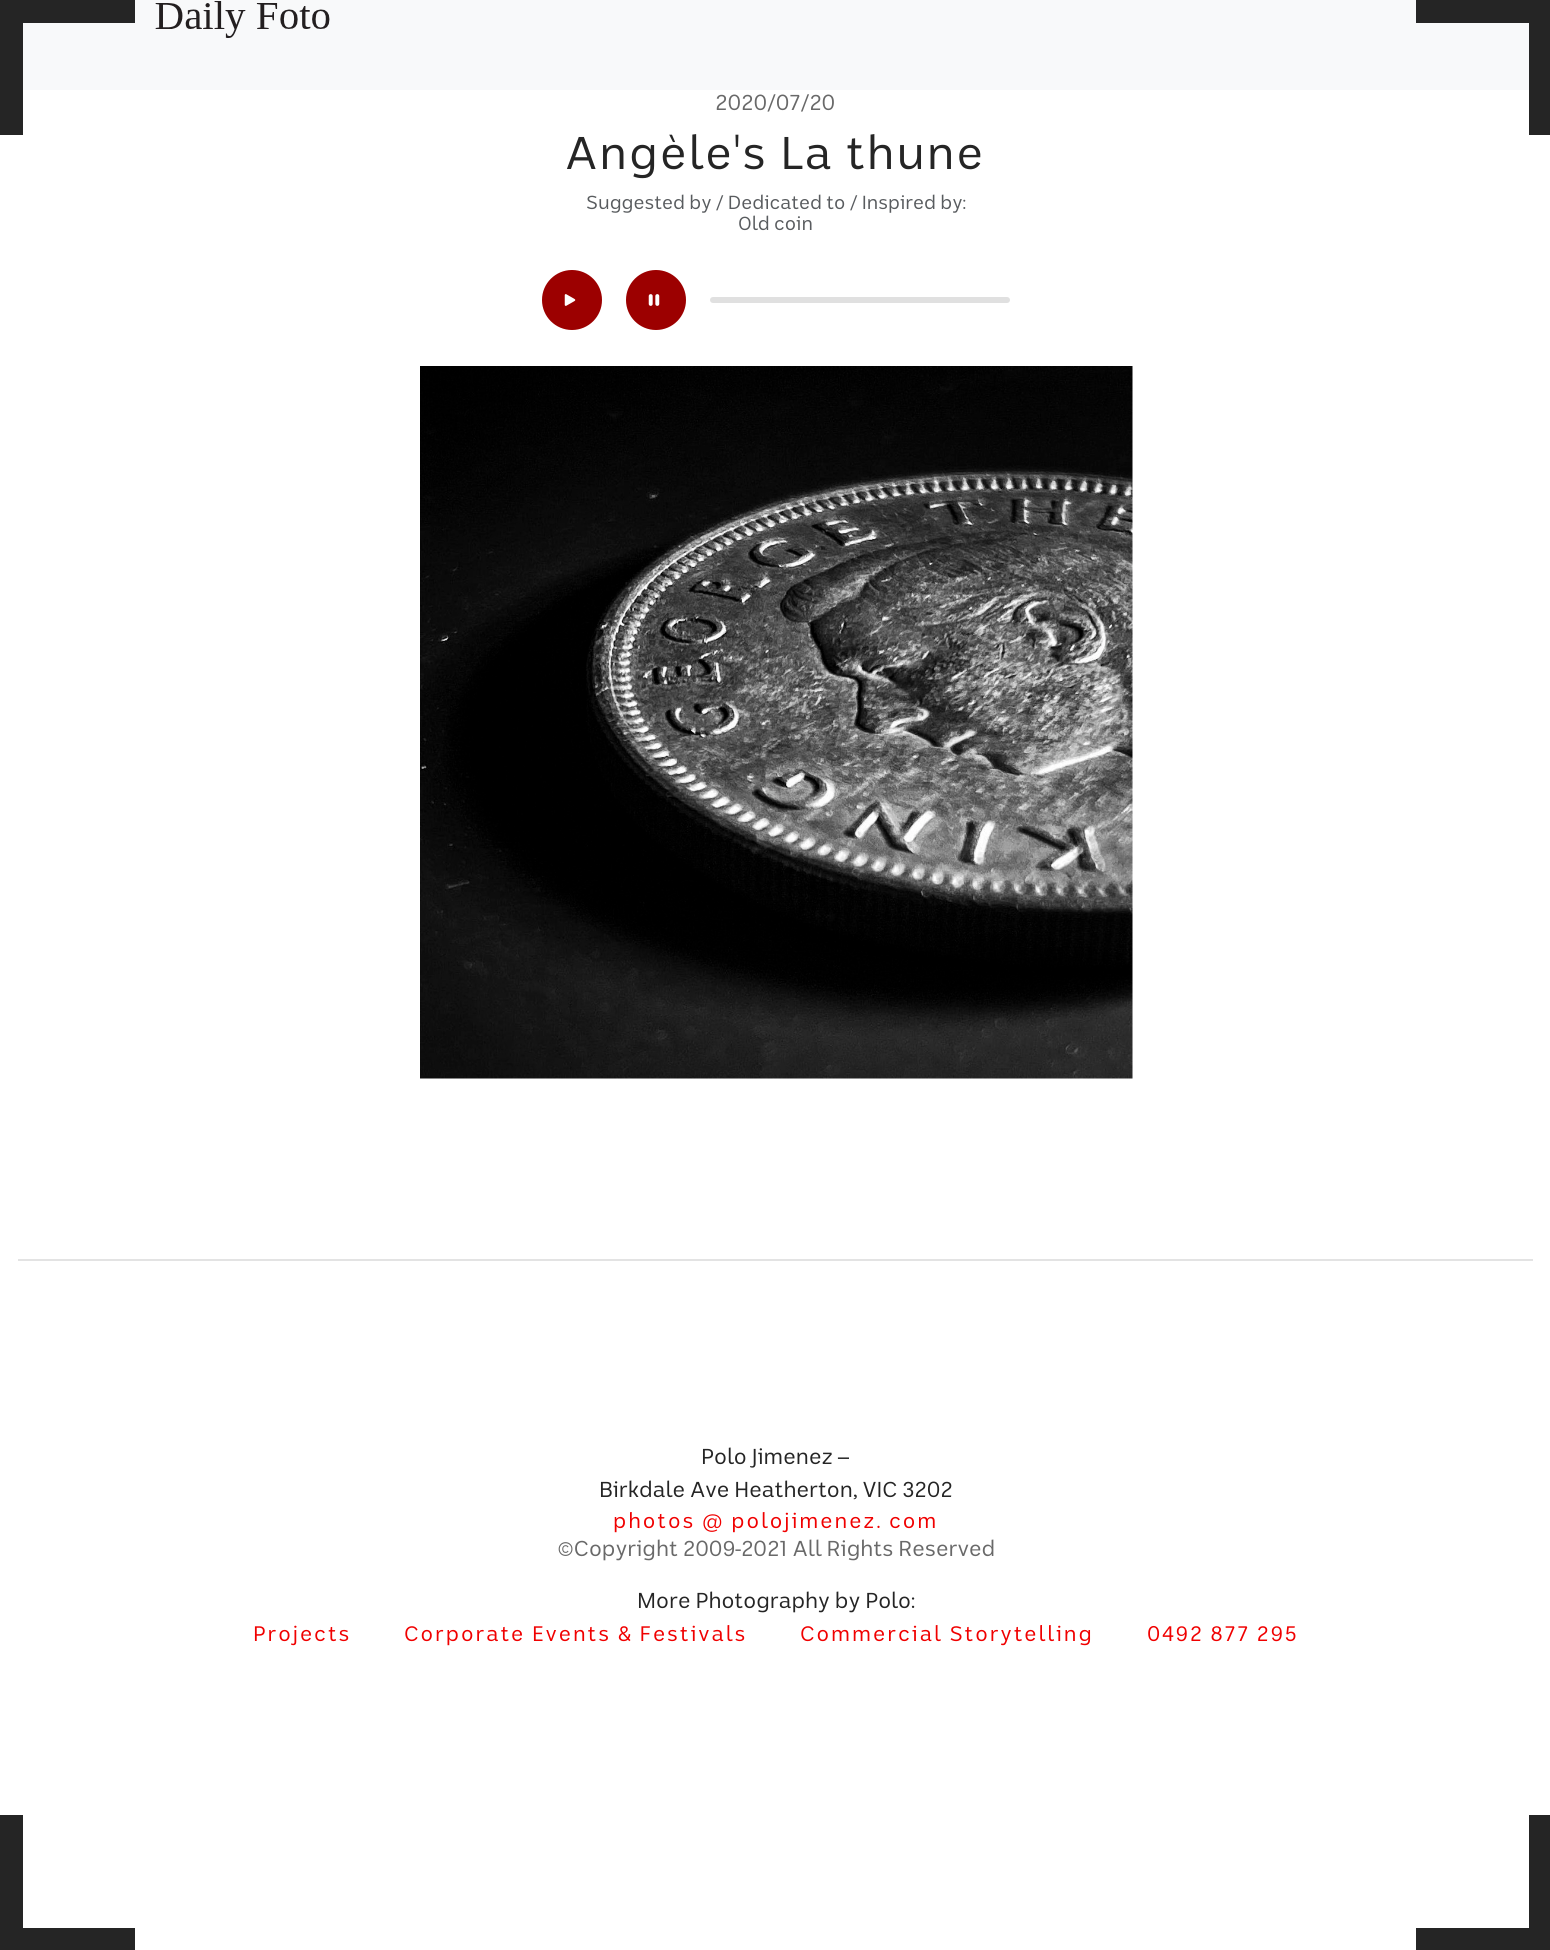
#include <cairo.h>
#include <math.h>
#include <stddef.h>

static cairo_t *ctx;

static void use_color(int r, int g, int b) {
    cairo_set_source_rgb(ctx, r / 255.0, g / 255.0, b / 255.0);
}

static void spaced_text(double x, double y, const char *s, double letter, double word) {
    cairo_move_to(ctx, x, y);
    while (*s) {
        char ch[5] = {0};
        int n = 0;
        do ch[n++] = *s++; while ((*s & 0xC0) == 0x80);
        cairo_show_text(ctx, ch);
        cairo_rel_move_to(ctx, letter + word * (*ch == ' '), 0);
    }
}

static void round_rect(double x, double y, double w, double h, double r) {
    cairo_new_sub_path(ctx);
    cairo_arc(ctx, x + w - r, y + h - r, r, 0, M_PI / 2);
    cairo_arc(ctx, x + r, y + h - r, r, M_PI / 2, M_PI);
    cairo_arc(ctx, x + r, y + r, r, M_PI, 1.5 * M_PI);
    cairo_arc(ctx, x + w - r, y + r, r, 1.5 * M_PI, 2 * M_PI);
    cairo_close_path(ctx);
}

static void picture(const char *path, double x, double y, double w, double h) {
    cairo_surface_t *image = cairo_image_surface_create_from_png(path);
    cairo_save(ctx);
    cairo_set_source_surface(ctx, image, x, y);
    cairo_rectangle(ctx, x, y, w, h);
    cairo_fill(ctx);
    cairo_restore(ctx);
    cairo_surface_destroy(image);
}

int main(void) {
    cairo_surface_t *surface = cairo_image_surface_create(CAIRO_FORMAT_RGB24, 1550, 1950);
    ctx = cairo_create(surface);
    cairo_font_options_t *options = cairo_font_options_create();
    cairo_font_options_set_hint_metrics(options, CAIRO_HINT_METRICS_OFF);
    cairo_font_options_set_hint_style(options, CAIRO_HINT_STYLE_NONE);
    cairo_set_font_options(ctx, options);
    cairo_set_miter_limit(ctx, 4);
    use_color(255, 255, 255);
    cairo_paint(ctx);
    use_color(248, 249, 250);
    cairo_rectangle(ctx, 23, 0, 1506, 90);
    cairo_fill(ctx);
    use_color(37, 37, 37);
    cairo_rectangle(ctx, 23, 0, 112, 23);
    cairo_fill(ctx);
    cairo_rectangle(ctx, 0, 0, 23, 135);
    cairo_fill(ctx);
    cairo_rectangle(ctx, 1416, 0, 113, 23);
    cairo_fill(ctx);
    cairo_rectangle(ctx, 1529, 0, 21, 135);
    cairo_fill(ctx);
    cairo_rectangle(ctx, 23, 1928, 112, 22);
    cairo_fill(ctx);
    cairo_rectangle(ctx, 0, 1815, 23, 135);
    cairo_fill(ctx);
    cairo_rectangle(ctx, 1529, 1815, 21, 113);
    cairo_fill(ctx);
    cairo_rectangle(ctx, 1416, 1928, 134, 22);
    cairo_fill(ctx);
    picture("img1.png", 155, 1, 175, 37);
    cairo_select_font_face(ctx, "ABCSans", CAIRO_FONT_SLANT_NORMAL, CAIRO_FONT_WEIGHT_NORMAL);
    cairo_set_font_size(ctx, 21.6);
    use_color(105, 105, 105);
    cairo_move_to(ctx, 715, 110);
    cairo_show_text(ctx, "2020/07/20");
    cairo_set_font_size(ctx, 45.75);
    use_color(37, 37, 37);
    spaced_text(565, 169, "Angèle's La thune", 1.95, 0);
    cairo_set_font_size(ctx, 18.9);
    use_color(89, 92, 95);
    cairo_move_to(ctx, 586, 209);
    cairo_show_text(ctx, "Suggested by / Dedicated to / Inspired by:");
    cairo_move_to(ctx, 738, 230);
    cairo_show_text(ctx, "Old coin");
    use_color(156, 0, 0);
    cairo_new_path(ctx);
    cairo_arc(ctx, 572, 300, 29, 0, 2 * M_PI);
    cairo_fill_preserve(ctx);
    cairo_stroke(ctx);
    picture("img2.png", 564, 294, 12, 12);
    cairo_arc(ctx, 656, 300, 29, 0, 2 * M_PI);
    cairo_fill_preserve(ctx);
    cairo_stroke(ctx);
    picture("img3.png", 648, 294, 12, 12);
    use_color(224, 224, 224);
    round_rect(710, 297, 300, 6, 3);
    cairo_fill(ctx);
    picture("img4.png", 420, 366, 713, 713);
    use_color(227, 227, 227);
    cairo_rectangle(ctx, 18, 1259, 1515, 2);
    cairo_fill(ctx);
    cairo_set_font_size(ctx, 21.6);
    use_color(37, 37, 37);
    cairo_move_to(ctx, 701, 1464);
    cairo_show_text(ctx, "Polo Jimenez –");
    cairo_move_to(ctx, 599, 1497);
    cairo_show_text(ctx, "Birkdale Ave Heatherton, VIC 3202");
    cairo_set_font_size(ctx, 21);
    use_color(240, 0, 0);
    spaced_text(613, 1528, "photos @ polojimenez. com", 1.95, 0);
    cairo_set_font_size(ctx, 21.6);
    use_color(105, 105, 105);
    cairo_move_to(ctx, 557, 1556);
    cairo_show_text(ctx, "©Copyright 2009-2021 All Rights Reserved");
    use_color(37, 37, 37);
    cairo_move_to(ctx, 637, 1608);
    cairo_show_text(ctx, "More Photography by Polo:");
    cairo_set_font_size(ctx, 21);
    use_color(240, 0, 0);
    spaced_text(253, 1641, "Projects", 1.95, 0);
    spaced_text(404, 1641, "Corporate Events & Festivals", 1.95, 0);
    spaced_text(800, 1641, "Commercial Storytelling", 1.95, 0);
    spaced_text(1147, 1641, "0492 877 295", 1.95, 0);
    cairo_surface_write_to_png(surface, "result.png");
    cairo_font_options_destroy(options);
    cairo_destroy(ctx);
    cairo_surface_destroy(surface);
    return 0;
}
